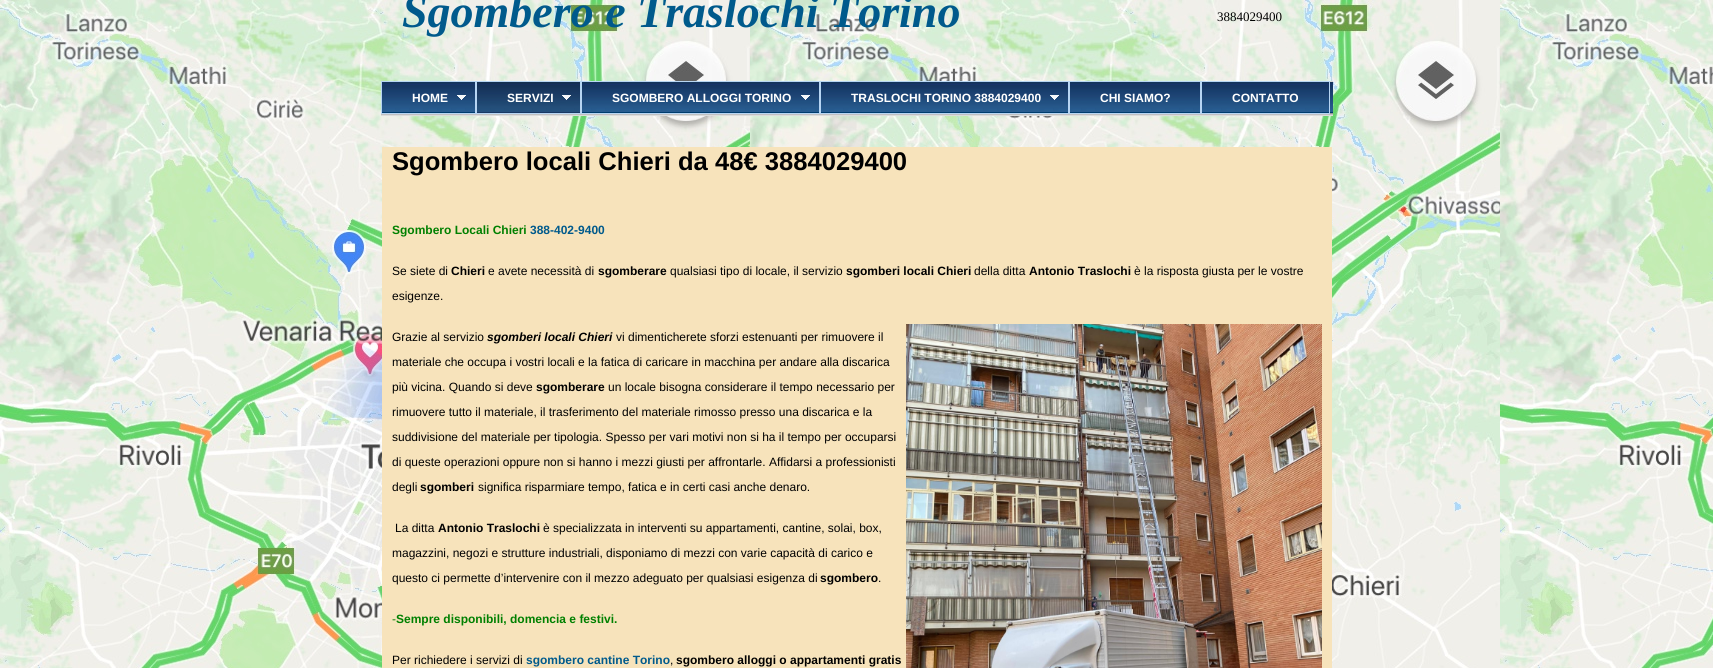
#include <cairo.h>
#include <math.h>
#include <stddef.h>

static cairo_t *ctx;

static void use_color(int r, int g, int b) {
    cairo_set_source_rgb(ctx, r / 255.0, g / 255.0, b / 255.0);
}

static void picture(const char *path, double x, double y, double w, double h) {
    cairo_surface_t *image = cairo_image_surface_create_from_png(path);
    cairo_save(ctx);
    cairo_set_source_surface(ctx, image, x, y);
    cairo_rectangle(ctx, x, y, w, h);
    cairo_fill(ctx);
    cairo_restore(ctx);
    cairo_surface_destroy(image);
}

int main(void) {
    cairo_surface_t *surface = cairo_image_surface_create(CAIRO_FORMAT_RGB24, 1713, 668);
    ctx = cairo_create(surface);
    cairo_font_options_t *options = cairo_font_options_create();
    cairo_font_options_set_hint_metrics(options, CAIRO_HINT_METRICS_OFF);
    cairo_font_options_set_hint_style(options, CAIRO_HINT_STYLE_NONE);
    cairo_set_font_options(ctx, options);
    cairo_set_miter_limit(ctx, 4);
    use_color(255, 255, 255);
    cairo_paint(ctx);
    picture("img1.png", 0, 0, 1713, 668);
    cairo_select_font_face(ctx, "Liberation Serif", CAIRO_FONT_SLANT_ITALIC, CAIRO_FONT_WEIGHT_BOLD);
    cairo_set_font_size(ctx, 46);
    use_color(0, 90, 140);
    cairo_move_to(ctx, 402, 27);
    cairo_show_text(ctx, "Sgombero e Traslochi Torino");
    cairo_select_font_face(ctx, "Liberation Serif", CAIRO_FONT_SLANT_NORMAL, CAIRO_FONT_WEIGHT_NORMAL);
    cairo_set_font_size(ctx, 13);
    use_color(0, 0, 0);
    cairo_move_to(ctx, 1217, 21);
    cairo_show_text(ctx, "3884029400");
    picture("img2.png", 381, 81, 952, 35);
    cairo_rectangle(ctx, 381.5, 81.5, 94, 32);
    use_color(183, 213, 243);
    cairo_set_line_width(ctx, 1);
    cairo_stroke(ctx);
    cairo_select_font_face(ctx, "Liberation Sans", CAIRO_FONT_SLANT_NORMAL, CAIRO_FONT_WEIGHT_BOLD);
    cairo_set_font_size(ctx, 12);
    use_color(255, 255, 255);
    cairo_move_to(ctx, 412, 102);
    cairo_show_text(ctx, "HOME");
    picture("img3.png", 457, 95, 9, 5);
    picture("img4.png", 457, 95, 9, 5);
    picture("img5.png", 477, 82, 103, 31);
    cairo_rectangle(ctx, 476.5, 81.5, 104, 32);
    use_color(183, 213, 243);
    cairo_stroke(ctx);
    use_color(255, 255, 255);
    cairo_move_to(ctx, 507, 102);
    cairo_show_text(ctx, "SERVIZI");
    picture("img6.png", 562, 95, 9, 5);
    picture("img7.png", 562, 95, 9, 5);
    cairo_rectangle(ctx, 581.5, 81.5, 238, 32);
    use_color(183, 213, 243);
    cairo_stroke(ctx);
    use_color(255, 255, 255);
    cairo_move_to(ctx, 612, 102);
    cairo_show_text(ctx, "SGOMBERO ALLOGGI TORINO");
    picture("img3.png", 801, 95, 9, 5);
    picture("img4.png", 801, 95, 9, 5);
    cairo_rectangle(ctx, 820.5, 81.5, 248, 32);
    use_color(183, 213, 243);
    cairo_stroke(ctx);
    use_color(255, 255, 255);
    cairo_move_to(ctx, 851, 102);
    cairo_show_text(ctx, "TRASLOCHI TORINO 3884029400");
    picture("img3.png", 1050, 95, 9, 5);
    picture("img4.png", 1050, 95, 9, 5);
    cairo_rectangle(ctx, 1069.5, 81.5, 131, 32);
    use_color(183, 213, 243);
    cairo_stroke(ctx);
    use_color(255, 255, 255);
    cairo_move_to(ctx, 1100, 102);
    cairo_show_text(ctx, "CHI SIAMO?");
    cairo_rectangle(ctx, 1201.5, 81.5, 128, 32);
    use_color(183, 213, 243);
    cairo_stroke(ctx);
    use_color(255, 255, 255);
    cairo_move_to(ctx, 1232, 102);
    cairo_show_text(ctx, "CONTATTO");
    use_color(247, 227, 187);
    cairo_rectangle(ctx, 382, 147, 950, 521);
    cairo_fill(ctx);
    cairo_set_font_size(ctx, 25.6);
    use_color(0, 0, 0);
    cairo_move_to(ctx, 392, 170);
    cairo_show_text(ctx, "Sgombero locali Chieri da 48€ 3884029400");
    cairo_set_font_size(ctx, 12);
    use_color(0, 128, 0);
    cairo_move_to(ctx, 392, 234);
    cairo_show_text(ctx, "Sgombero Locali Chieri");
    use_color(0, 90, 140);
    cairo_move_to(ctx, 530, 234);
    cairo_show_text(ctx, "388-402-9400");
    cairo_select_font_face(ctx, "Liberation Sans", CAIRO_FONT_SLANT_NORMAL, CAIRO_FONT_WEIGHT_NORMAL);
    use_color(0, 0, 0);
    cairo_move_to(ctx, 392, 275);
    cairo_show_text(ctx, "Se siete di");
    cairo_select_font_face(ctx, "Liberation Sans", CAIRO_FONT_SLANT_NORMAL, CAIRO_FONT_WEIGHT_BOLD);
    cairo_move_to(ctx, 451, 275);
    cairo_show_text(ctx, "Chieri");
    cairo_select_font_face(ctx, "Liberation Sans", CAIRO_FONT_SLANT_NORMAL, CAIRO_FONT_WEIGHT_NORMAL);
    cairo_move_to(ctx, 488, 275);
    cairo_show_text(ctx, "e avete necessità di");
    cairo_select_font_face(ctx, "Liberation Sans", CAIRO_FONT_SLANT_NORMAL, CAIRO_FONT_WEIGHT_BOLD);
    cairo_move_to(ctx, 598, 275);
    cairo_show_text(ctx, "sgomberare");
    cairo_select_font_face(ctx, "Liberation Sans", CAIRO_FONT_SLANT_NORMAL, CAIRO_FONT_WEIGHT_NORMAL);
    cairo_move_to(ctx, 670, 275);
    cairo_show_text(ctx, "qualsiasi tipo di locale, il servizio");
    cairo_select_font_face(ctx, "Liberation Sans", CAIRO_FONT_SLANT_NORMAL, CAIRO_FONT_WEIGHT_BOLD);
    cairo_move_to(ctx, 846, 275);
    cairo_show_text(ctx, "sgomberi locali Chieri");
    cairo_select_font_face(ctx, "Liberation Sans", CAIRO_FONT_SLANT_NORMAL, CAIRO_FONT_WEIGHT_NORMAL);
    cairo_move_to(ctx, 974, 275);
    cairo_show_text(ctx, "della ditta");
    cairo_select_font_face(ctx, "Liberation Sans", CAIRO_FONT_SLANT_NORMAL, CAIRO_FONT_WEIGHT_BOLD);
    cairo_move_to(ctx, 1029, 275);
    cairo_show_text(ctx, "Antonio Traslochi");
    cairo_select_font_face(ctx, "Liberation Sans", CAIRO_FONT_SLANT_NORMAL, CAIRO_FONT_WEIGHT_NORMAL);
    cairo_move_to(ctx, 1134, 275);
    cairo_show_text(ctx, "è la risposta giusta per le vostre");
    cairo_move_to(ctx, 392, 300);
    cairo_show_text(ctx, "esigenze.");
    cairo_move_to(ctx, 392, 341);
    cairo_show_text(ctx, "Grazie al servizio");
    cairo_select_font_face(ctx, "Liberation Sans", CAIRO_FONT_SLANT_ITALIC, CAIRO_FONT_WEIGHT_BOLD);
    cairo_move_to(ctx, 487, 341);
    cairo_show_text(ctx, "sgomberi locali Chieri");
    cairo_select_font_face(ctx, "Liberation Sans", CAIRO_FONT_SLANT_NORMAL, CAIRO_FONT_WEIGHT_NORMAL);
    cairo_move_to(ctx, 616, 341);
    cairo_show_text(ctx, "vi dimenticherete sforzi estenuanti per rimuovere il");
    picture("img8.png", 906, 324, 416, 344);
    cairo_move_to(ctx, 392, 366);
    cairo_show_text(ctx, "materiale che occupa i vostri locali e la fatica di caricare in macchina per andare alla discarica");
    cairo_move_to(ctx, 392, 391);
    cairo_show_text(ctx, "più vicina. Quando si deve");
    cairo_select_font_face(ctx, "Liberation Sans", CAIRO_FONT_SLANT_NORMAL, CAIRO_FONT_WEIGHT_BOLD);
    cairo_move_to(ctx, 536, 391);
    cairo_show_text(ctx, "sgomberare");
    cairo_select_font_face(ctx, "Liberation Sans", CAIRO_FONT_SLANT_NORMAL, CAIRO_FONT_WEIGHT_NORMAL);
    cairo_move_to(ctx, 608, 391);
    cairo_show_text(ctx, "un locale bisogna considerare il tempo necessario per");
    cairo_move_to(ctx, 392, 416);
    cairo_show_text(ctx, "rimuovere tutto il materiale, il trasferimento del materiale rimosso presso una discarica e la");
    cairo_move_to(ctx, 392, 441);
    cairo_show_text(ctx, "suddivisione del materiale per tipologia. Spesso per vari motivi non si ha il tempo per occuparsi");
    cairo_move_to(ctx, 392, 466);
    cairo_show_text(ctx, "di queste operazioni oppure non si hanno i mezzi giusti per affrontarle. Affidarsi a professionisti");
    cairo_move_to(ctx, 392, 491);
    cairo_show_text(ctx, "degli");
    cairo_select_font_face(ctx, "Liberation Sans", CAIRO_FONT_SLANT_NORMAL, CAIRO_FONT_WEIGHT_BOLD);
    cairo_move_to(ctx, 420, 491);
    cairo_show_text(ctx, "sgomberi");
    cairo_select_font_face(ctx, "Liberation Sans", CAIRO_FONT_SLANT_NORMAL, CAIRO_FONT_WEIGHT_NORMAL);
    cairo_move_to(ctx, 478, 491);
    cairo_show_text(ctx, "significa risparmiare tempo, fatica e in certi casi anche denaro.");
    cairo_move_to(ctx, 395, 532);
    cairo_show_text(ctx, "La ditta");
    cairo_select_font_face(ctx, "Liberation Sans", CAIRO_FONT_SLANT_NORMAL, CAIRO_FONT_WEIGHT_BOLD);
    cairo_move_to(ctx, 438, 532);
    cairo_show_text(ctx, "Antonio Traslochi");
    cairo_select_font_face(ctx, "Liberation Sans", CAIRO_FONT_SLANT_NORMAL, CAIRO_FONT_WEIGHT_NORMAL);
    cairo_move_to(ctx, 543, 532);
    cairo_show_text(ctx, "è specializzata in interventi su appartamenti, cantine, solai, box,");
    cairo_move_to(ctx, 392, 557);
    cairo_show_text(ctx, "magazzini, negozi e strutture industriali, disponiamo di mezzi con varie capacità di carico e");
    cairo_move_to(ctx, 392, 582);
    cairo_show_text(ctx, "questo ci permette d’intervenire con il mezzo adeguato per qualsiasi esigenza di");
    cairo_select_font_face(ctx, "Liberation Sans", CAIRO_FONT_SLANT_NORMAL, CAIRO_FONT_WEIGHT_BOLD);
    cairo_move_to(ctx, 820, 582);
    cairo_show_text(ctx, "sgombero");
    cairo_select_font_face(ctx, "Liberation Sans", CAIRO_FONT_SLANT_NORMAL, CAIRO_FONT_WEIGHT_NORMAL);
    cairo_move_to(ctx, 878, 582);
    cairo_show_text(ctx, ".");
    use_color(0, 128, 0);
    cairo_move_to(ctx, 392, 623);
    cairo_show_text(ctx, "-");
    cairo_select_font_face(ctx, "Liberation Sans", CAIRO_FONT_SLANT_NORMAL, CAIRO_FONT_WEIGHT_BOLD);
    cairo_move_to(ctx, 396, 623);
    cairo_show_text(ctx, "Sempre disponibili, domencia e festivi.");
    cairo_select_font_face(ctx, "Liberation Sans", CAIRO_FONT_SLANT_NORMAL, CAIRO_FONT_WEIGHT_NORMAL);
    use_color(0, 0, 0);
    cairo_move_to(ctx, 392, 664);
    cairo_show_text(ctx, "Per richiedere i servizi di");
    cairo_select_font_face(ctx, "Liberation Sans", CAIRO_FONT_SLANT_NORMAL, CAIRO_FONT_WEIGHT_BOLD);
    use_color(0, 90, 140);
    cairo_move_to(ctx, 526, 664);
    cairo_show_text(ctx, "sgombero cantine Torino");
    cairo_select_font_face(ctx, "Liberation Sans", CAIRO_FONT_SLANT_NORMAL, CAIRO_FONT_WEIGHT_NORMAL);
    use_color(0, 0, 0);
    cairo_move_to(ctx, 670, 664);
    cairo_show_text(ctx, ",");
    cairo_select_font_face(ctx, "Liberation Sans", CAIRO_FONT_SLANT_NORMAL, CAIRO_FONT_WEIGHT_BOLD);
    cairo_move_to(ctx, 676, 664);
    cairo_show_text(ctx, "sgombero alloggi o appartamenti gratis");
    cairo_surface_write_to_png(surface, "result.png");
    cairo_font_options_destroy(options);
    cairo_destroy(ctx);
    cairo_surface_destroy(surface);
    return 0;
}
